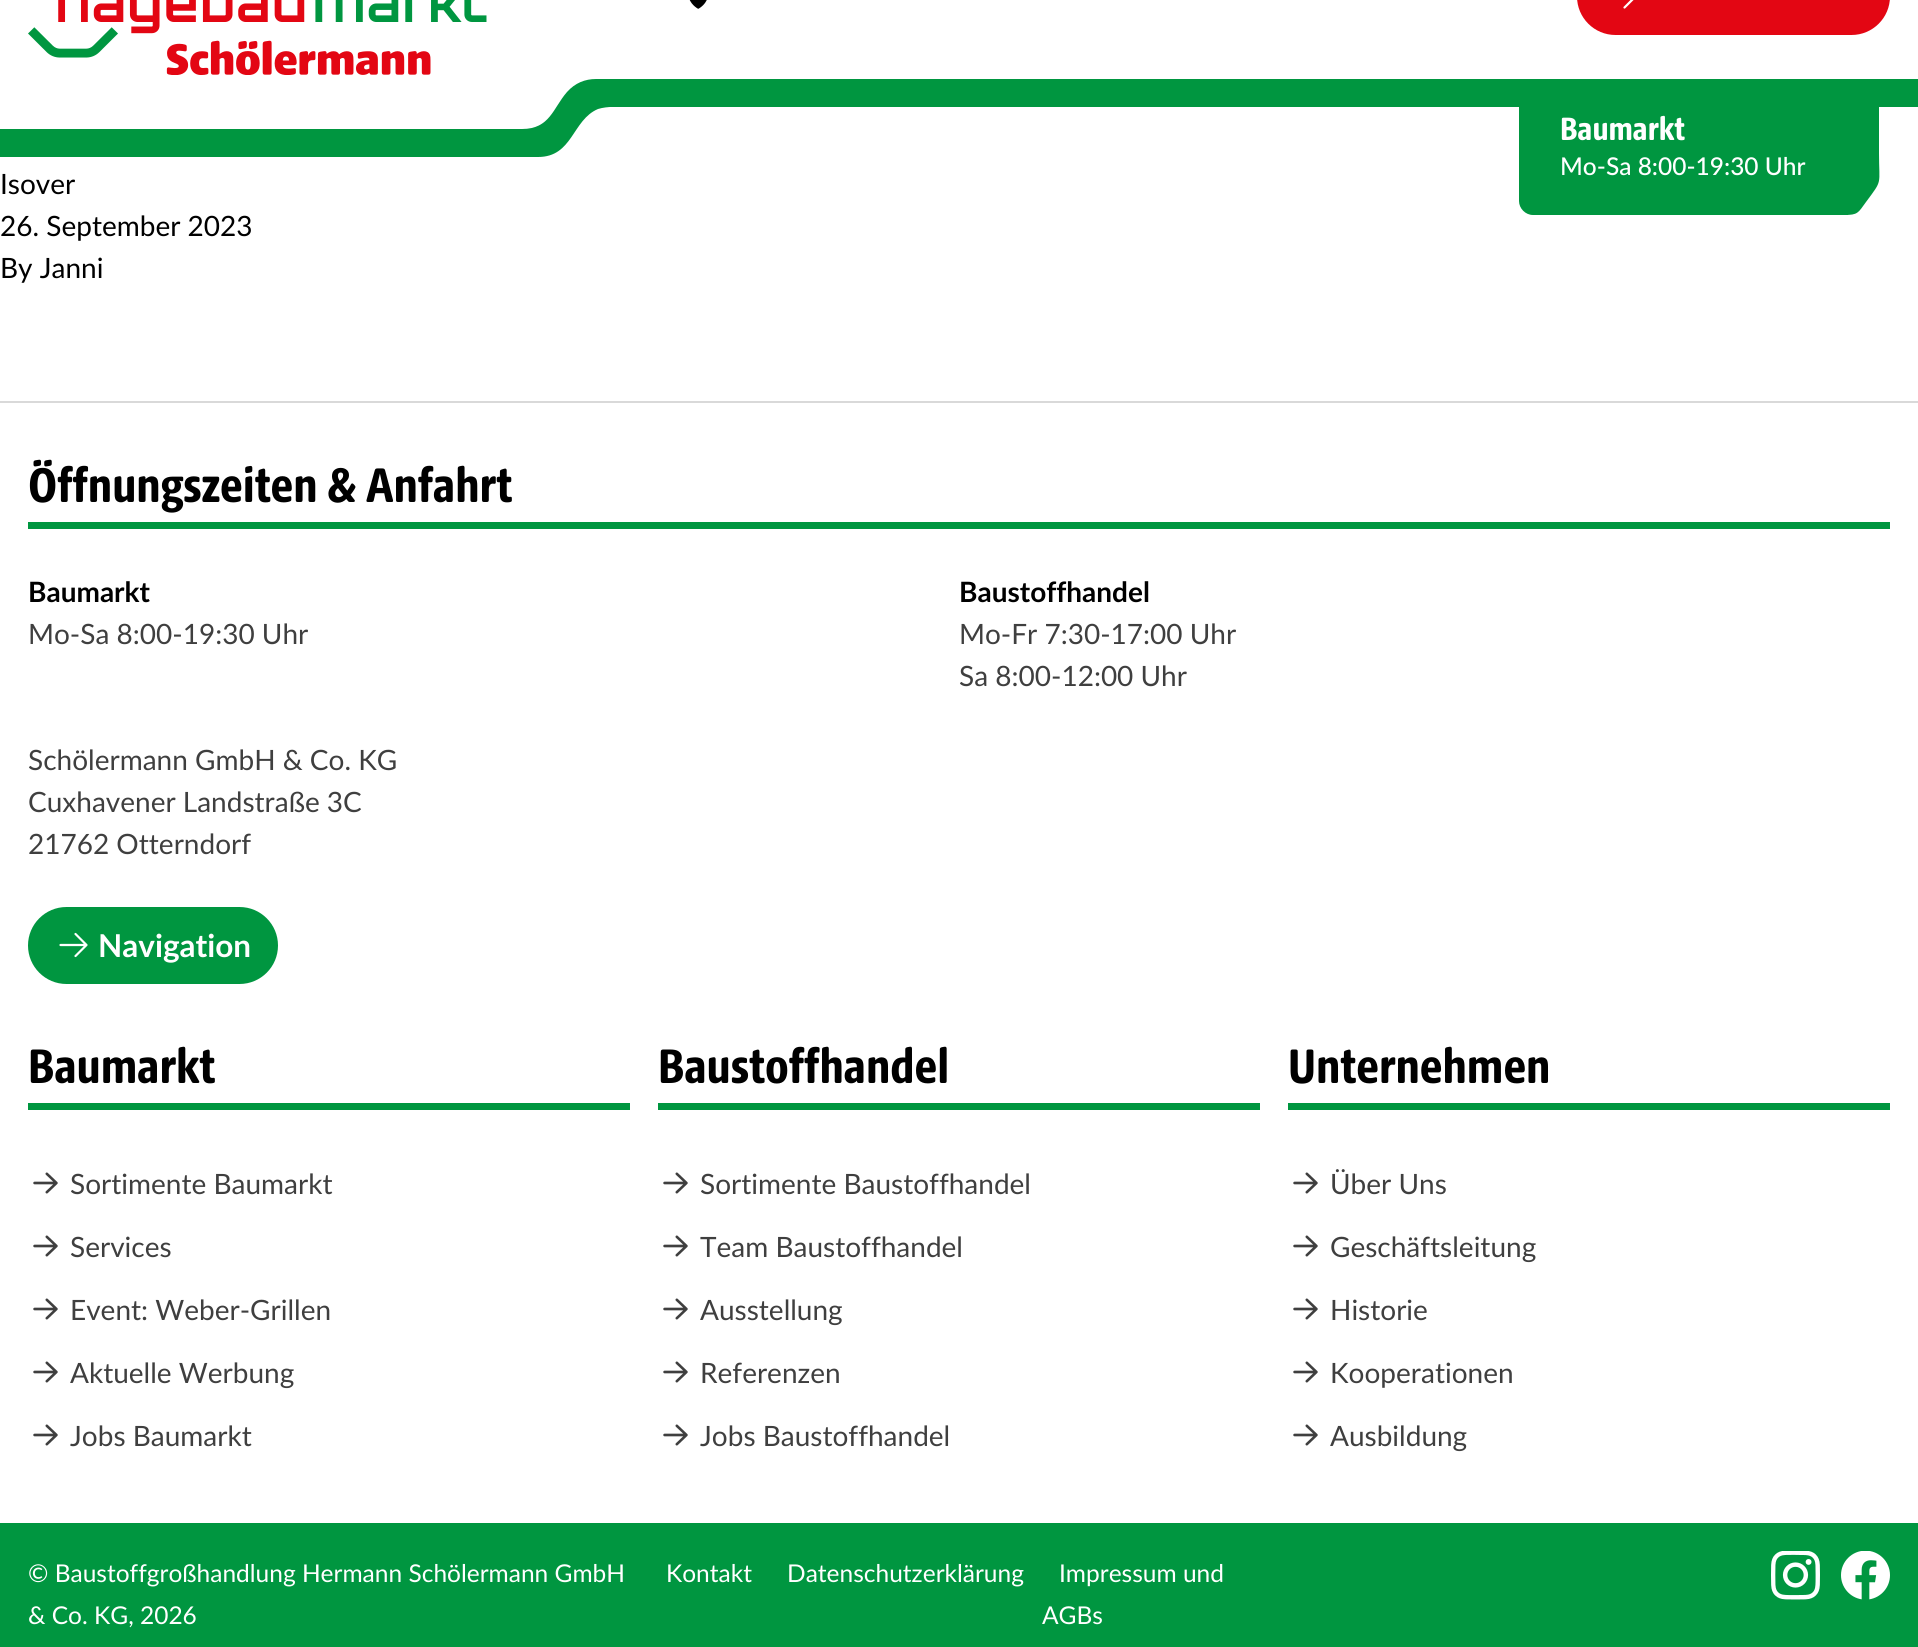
#include <cairo.h>
#include <math.h>
#include <stddef.h>

static cairo_t *ctx;

static void use_color(int r, int g, int b) {
    cairo_set_source_rgb(ctx, r / 255.0, g / 255.0, b / 255.0);
}

static void round_rect(double x, double y, double w, double h, double r) {
    cairo_new_sub_path(ctx);
    cairo_arc(ctx, x + w - r, y + h - r, r, 0, M_PI / 2);
    cairo_arc(ctx, x + r, y + h - r, r, M_PI / 2, M_PI);
    cairo_arc(ctx, x + r, y + r, r, M_PI, 1.5 * M_PI);
    cairo_arc(ctx, x + w - r, y + r, r, 1.5 * M_PI, 2 * M_PI);
    cairo_close_path(ctx);
}

static void picture(const char *path, double x, double y, double w, double h) {
    cairo_surface_t *image = cairo_image_surface_create_from_png(path);
    cairo_save(ctx);
    cairo_set_source_surface(ctx, image, x, y);
    cairo_rectangle(ctx, x, y, w, h);
    cairo_fill(ctx);
    cairo_restore(ctx);
    cairo_surface_destroy(image);
}

int main(void) {
    cairo_surface_t *surface = cairo_image_surface_create(CAIRO_FORMAT_RGB24, 1918, 1647);
    ctx = cairo_create(surface);
    cairo_font_options_t *options = cairo_font_options_create();
    cairo_font_options_set_hint_metrics(options, CAIRO_HINT_METRICS_OFF);
    cairo_font_options_set_hint_style(options, CAIRO_HINT_STYLE_NONE);
    cairo_set_font_options(ctx, options);
    cairo_set_miter_limit(ctx, 4);
    use_color(255, 255, 255);
    cairo_paint(ctx);
    use_color(0, 150, 64);
    cairo_rectangle(ctx, 611, 79, 1307, 28);
    cairo_fill(ctx);
    picture("img1.png", 28, 0, 459, 75);
    use_color(255, 255, 255);
    cairo_new_path(ctx);
    cairo_move_to(ctx, 623, 79);
    cairo_line_to(ctx, -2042, 79);
    cairo_line_to(ctx, -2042, 146);
    cairo_line_to(ctx, 530, 146);
    cairo_close_path(ctx);
    cairo_fill(ctx);
    use_color(0, 150, 64);
    cairo_new_path(ctx);
    cairo_move_to(ctx, 596, 79);
    cairo_curve_to(ctx, 585, 79, 575, 83, 567, 92);
    cairo_curve_to(ctx, 553, 108, 550, 129, 522, 129);
    cairo_line_to(ctx, -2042, 129);
    cairo_line_to(ctx, -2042, 157);
    cairo_line_to(ctx, 538, 157);
    cairo_curve_to(ctx, 573, 157, 572, 120, 598, 109);
    cairo_curve_to(ctx, 608, 106, 618, 107, 628, 107);
    cairo_line_to(ctx, 628, 79);
    cairo_close_path(ctx);
    cairo_fill(ctx);
    picture("img2.png", 689, 0, 18, 9);
    use_color(227, 6, 19);
    round_rect(1577, -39, 313, 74, 38.5);
    cairo_fill(ctx);
    cairo_new_path(ctx);
    cairo_move_to(ctx, 1624.5, -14.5);
    cairo_line_to(ctx, 1635.5, -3.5);
    cairo_move_to(ctx, 1635.5, -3.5);
    cairo_line_to(ctx, 1624.5, 7.5);
    cairo_move_to(ctx, 1635.5, -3.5);
    cairo_line_to(ctx, 1609, -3.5);
    use_color(255, 255, 255);
    cairo_set_line_width(ctx, 2.2);
    cairo_set_line_cap(ctx, CAIRO_LINE_CAP_ROUND);
    cairo_set_line_join(ctx, CAIRO_LINE_JOIN_ROUND);
    cairo_stroke(ctx);
    use_color(0, 150, 64);
    cairo_new_path(ctx);
    cairo_move_to(ctx, 1519, 100);
    cairo_line_to(ctx, 1848, 100);
    cairo_line_to(ctx, 1848, 215);
    cairo_line_to(ctx, 1533, 215);
    cairo_curve_to(ctx, 1525.5, 215, 1519, 208.5, 1519, 201);
    cairo_close_path(ctx);
    cairo_fill(ctx);
    cairo_select_font_face(ctx, "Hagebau", CAIRO_FONT_SLANT_NORMAL, CAIRO_FONT_WEIGHT_BOLD);
    cairo_set_font_size(ctx, 35);
    use_color(255, 255, 255);
    cairo_move_to(ctx, 1560, 140);
    cairo_show_text(ctx, "Baumarkt");
    cairo_select_font_face(ctx, "Lato Medium", CAIRO_FONT_SLANT_NORMAL, CAIRO_FONT_WEIGHT_NORMAL);
    cairo_set_font_size(ctx, 24.5);
    cairo_move_to(ctx, 1560, 175);
    cairo_show_text(ctx, "Mo-Sa 8:00-19:30 Uhr");
    cairo_save(ctx);
    cairo_rectangle(ctx, 1845, 100, 35, 115);
    cairo_clip(ctx);
    use_color(0, 150, 64);
    cairo_new_path(ctx);
    cairo_move_to(ctx, 1844, 100);
    cairo_line_to(ctx, 1879, 100);
    cairo_line_to(ctx, 1879, 153);
    cairo_curve_to(ctx, 1879, 186, 1883, 179, 1866, 202);
    cairo_curve_to(ctx, 1858, 213, 1858, 215, 1844, 215);
    cairo_fill(ctx);
    cairo_restore(ctx);
    cairo_select_font_face(ctx, "Lato", CAIRO_FONT_SLANT_NORMAL, CAIRO_FONT_WEIGHT_NORMAL);
    cairo_set_font_size(ctx, 28);
    use_color(0, 0, 0);
    cairo_move_to(ctx, 0, 194);
    cairo_show_text(ctx, "Isover");
    cairo_move_to(ctx, 0, 236);
    cairo_show_text(ctx, "26. September 2023");
    cairo_move_to(ctx, 0, 278);
    cairo_show_text(ctx, "By Janni");
    use_color(217, 217, 217);
    cairo_rectangle(ctx, 0, 401, 1918, 2);
    cairo_fill(ctx);
    use_color(0, 150, 64);
    cairo_rectangle(ctx, 28, 522, 1862, 7);
    cairo_fill(ctx);
    cairo_select_font_face(ctx, "Hagebau", CAIRO_FONT_SLANT_NORMAL, CAIRO_FONT_WEIGHT_BOLD);
    cairo_set_font_size(ctx, 52.5);
    use_color(0, 0, 0);
    cairo_move_to(ctx, 28, 502);
    cairo_show_text(ctx, "Öffnungszeiten & Anfahrt");
    cairo_select_font_face(ctx, "Lato", CAIRO_FONT_SLANT_NORMAL, CAIRO_FONT_WEIGHT_BOLD);
    cairo_set_font_size(ctx, 28);
    cairo_move_to(ctx, 28, 602);
    cairo_show_text(ctx, "Baumarkt");
    cairo_select_font_face(ctx, "Lato", CAIRO_FONT_SLANT_NORMAL, CAIRO_FONT_WEIGHT_NORMAL);
    use_color(63, 63, 63);
    cairo_move_to(ctx, 28, 644);
    cairo_show_text(ctx, "Mo-Sa 8:00-19:30 Uhr");
    cairo_select_font_face(ctx, "Lato", CAIRO_FONT_SLANT_NORMAL, CAIRO_FONT_WEIGHT_BOLD);
    use_color(0, 0, 0);
    cairo_move_to(ctx, 959, 602);
    cairo_show_text(ctx, "Baustoffhandel");
    cairo_select_font_face(ctx, "Lato", CAIRO_FONT_SLANT_NORMAL, CAIRO_FONT_WEIGHT_NORMAL);
    use_color(63, 63, 63);
    cairo_move_to(ctx, 959, 644);
    cairo_show_text(ctx, "Mo-Fr 7:30-17:00 Uhr");
    cairo_move_to(ctx, 959, 686);
    cairo_show_text(ctx, "Sa 8:00-12:00 Uhr");
    cairo_move_to(ctx, 28, 770);
    cairo_show_text(ctx, "Schölermann GmbH & Co. KG");
    cairo_move_to(ctx, 28, 812);
    cairo_show_text(ctx, "Cuxhavener Landstraße 3C");
    cairo_move_to(ctx, 28, 854);
    cairo_show_text(ctx, "21762 Otterndorf");
    use_color(0, 150, 64);
    round_rect(28, 907, 250, 77, 38.5);
    cairo_fill(ctx);
    cairo_new_path(ctx);
    cairo_move_to(ctx, 75.5, 934);
    cairo_line_to(ctx, 86.5, 945);
    cairo_move_to(ctx, 86.5, 945);
    cairo_line_to(ctx, 75.5, 956);
    cairo_move_to(ctx, 86.5, 945);
    cairo_line_to(ctx, 60.5, 945);
    use_color(255, 255, 255);
    cairo_stroke(ctx);
    cairo_select_font_face(ctx, "Lato", CAIRO_FONT_SLANT_NORMAL, CAIRO_FONT_WEIGHT_BOLD);
    cairo_set_font_size(ctx, 31.5);
    cairo_move_to(ctx, 98, 957);
    cairo_show_text(ctx, "Navigation");
    use_color(0, 150, 64);
    cairo_rectangle(ctx, 28, 1103, 602, 7);
    cairo_fill(ctx);
    cairo_select_font_face(ctx, "Hagebau", CAIRO_FONT_SLANT_NORMAL, CAIRO_FONT_WEIGHT_BOLD);
    cairo_set_font_size(ctx, 52.5);
    use_color(0, 0, 0);
    cairo_move_to(ctx, 28, 1083);
    cairo_show_text(ctx, "Baumarkt");
    picture("img3.png", 33, 1172, 25, 22);
    cairo_select_font_face(ctx, "Lato", CAIRO_FONT_SLANT_NORMAL, CAIRO_FONT_WEIGHT_NORMAL);
    cairo_set_font_size(ctx, 28);
    use_color(63, 63, 63);
    cairo_move_to(ctx, 70, 1194);
    cairo_show_text(ctx, "Sortimente Baumarkt");
    picture("img3.png", 33, 1235, 25, 22);
    cairo_move_to(ctx, 70, 1257);
    cairo_show_text(ctx, "Services");
    picture("img3.png", 33, 1298, 25, 22);
    cairo_move_to(ctx, 70, 1320);
    cairo_show_text(ctx, "Event: Weber-Grillen");
    picture("img3.png", 33, 1361, 25, 22);
    cairo_move_to(ctx, 70, 1383);
    cairo_show_text(ctx, "Aktuelle Werbung");
    picture("img3.png", 33, 1424, 25, 22);
    cairo_move_to(ctx, 70, 1446);
    cairo_show_text(ctx, "Jobs Baumarkt");
    use_color(0, 150, 64);
    cairo_rectangle(ctx, 658, 1103, 602, 7);
    cairo_fill(ctx);
    cairo_select_font_face(ctx, "Hagebau", CAIRO_FONT_SLANT_NORMAL, CAIRO_FONT_WEIGHT_BOLD);
    cairo_set_font_size(ctx, 52.5);
    use_color(0, 0, 0);
    cairo_move_to(ctx, 658, 1083);
    cairo_show_text(ctx, "Baustoffhandel");
    picture("img3.png", 663, 1172, 25, 22);
    cairo_select_font_face(ctx, "Lato", CAIRO_FONT_SLANT_NORMAL, CAIRO_FONT_WEIGHT_NORMAL);
    cairo_set_font_size(ctx, 28);
    use_color(63, 63, 63);
    cairo_move_to(ctx, 700, 1194);
    cairo_show_text(ctx, "Sortimente Baustoffhandel");
    picture("img3.png", 663, 1235, 25, 22);
    cairo_move_to(ctx, 700, 1257);
    cairo_show_text(ctx, "Team Baustoffhandel");
    picture("img3.png", 663, 1298, 25, 22);
    cairo_move_to(ctx, 700, 1320);
    cairo_show_text(ctx, "Ausstellung");
    picture("img3.png", 663, 1361, 25, 22);
    cairo_move_to(ctx, 700, 1383);
    cairo_show_text(ctx, "Referenzen");
    picture("img3.png", 663, 1424, 25, 22);
    cairo_move_to(ctx, 700, 1446);
    cairo_show_text(ctx, "Jobs Baustoffhandel");
    use_color(0, 150, 64);
    cairo_rectangle(ctx, 1288, 1103, 602, 7);
    cairo_fill(ctx);
    cairo_select_font_face(ctx, "Hagebau", CAIRO_FONT_SLANT_NORMAL, CAIRO_FONT_WEIGHT_BOLD);
    cairo_set_font_size(ctx, 52.5);
    use_color(0, 0, 0);
    cairo_move_to(ctx, 1288, 1083);
    cairo_show_text(ctx, "Unternehmen");
    picture("img3.png", 1293, 1172, 25, 22);
    cairo_select_font_face(ctx, "Lato", CAIRO_FONT_SLANT_NORMAL, CAIRO_FONT_WEIGHT_NORMAL);
    cairo_set_font_size(ctx, 28);
    use_color(63, 63, 63);
    cairo_move_to(ctx, 1330, 1194);
    cairo_show_text(ctx, "Über Uns");
    picture("img3.png", 1293, 1235, 25, 22);
    cairo_move_to(ctx, 1330, 1257);
    cairo_show_text(ctx, "Geschäftsleitung");
    picture("img3.png", 1293, 1298, 25, 22);
    cairo_move_to(ctx, 1330, 1320);
    cairo_show_text(ctx, "Historie");
    picture("img3.png", 1293, 1361, 25, 22);
    cairo_move_to(ctx, 1330, 1383);
    cairo_show_text(ctx, "Kooperationen");
    picture("img3.png", 1293, 1424, 25, 22);
    cairo_move_to(ctx, 1330, 1446);
    cairo_show_text(ctx, "Ausbildung");
    use_color(0, 150, 64);
    cairo_rectangle(ctx, 0, 1523, 1918, 124);
    cairo_fill(ctx);
    cairo_set_font_size(ctx, 24.5);
    use_color(255, 255, 255);
    cairo_move_to(ctx, 28, 1582);
    cairo_show_text(ctx, "© Baustoffgroßhandlung Hermann Schölermann GmbH");
    cairo_move_to(ctx, 28, 1624);
    cairo_show_text(ctx, "& Co. KG, 2026");
    cairo_move_to(ctx, 666, 1582);
    cairo_show_text(ctx, "Kontakt");
    cairo_move_to(ctx, 787, 1582);
    cairo_show_text(ctx, "Datenschutzerklärung");
    cairo_move_to(ctx, 1059, 1582);
    cairo_show_text(ctx, "Impressum und");
    cairo_move_to(ctx, 1042, 1624);
    cairo_show_text(ctx, "AGBs");
    picture("img4.png", 1771, 1551, 49, 49);
    picture("img5.png", 1841, 1551, 49, 49);
    cairo_surface_write_to_png(surface, "result.png");
    cairo_font_options_destroy(options);
    cairo_destroy(ctx);
    cairo_surface_destroy(surface);
    return 0;
}
